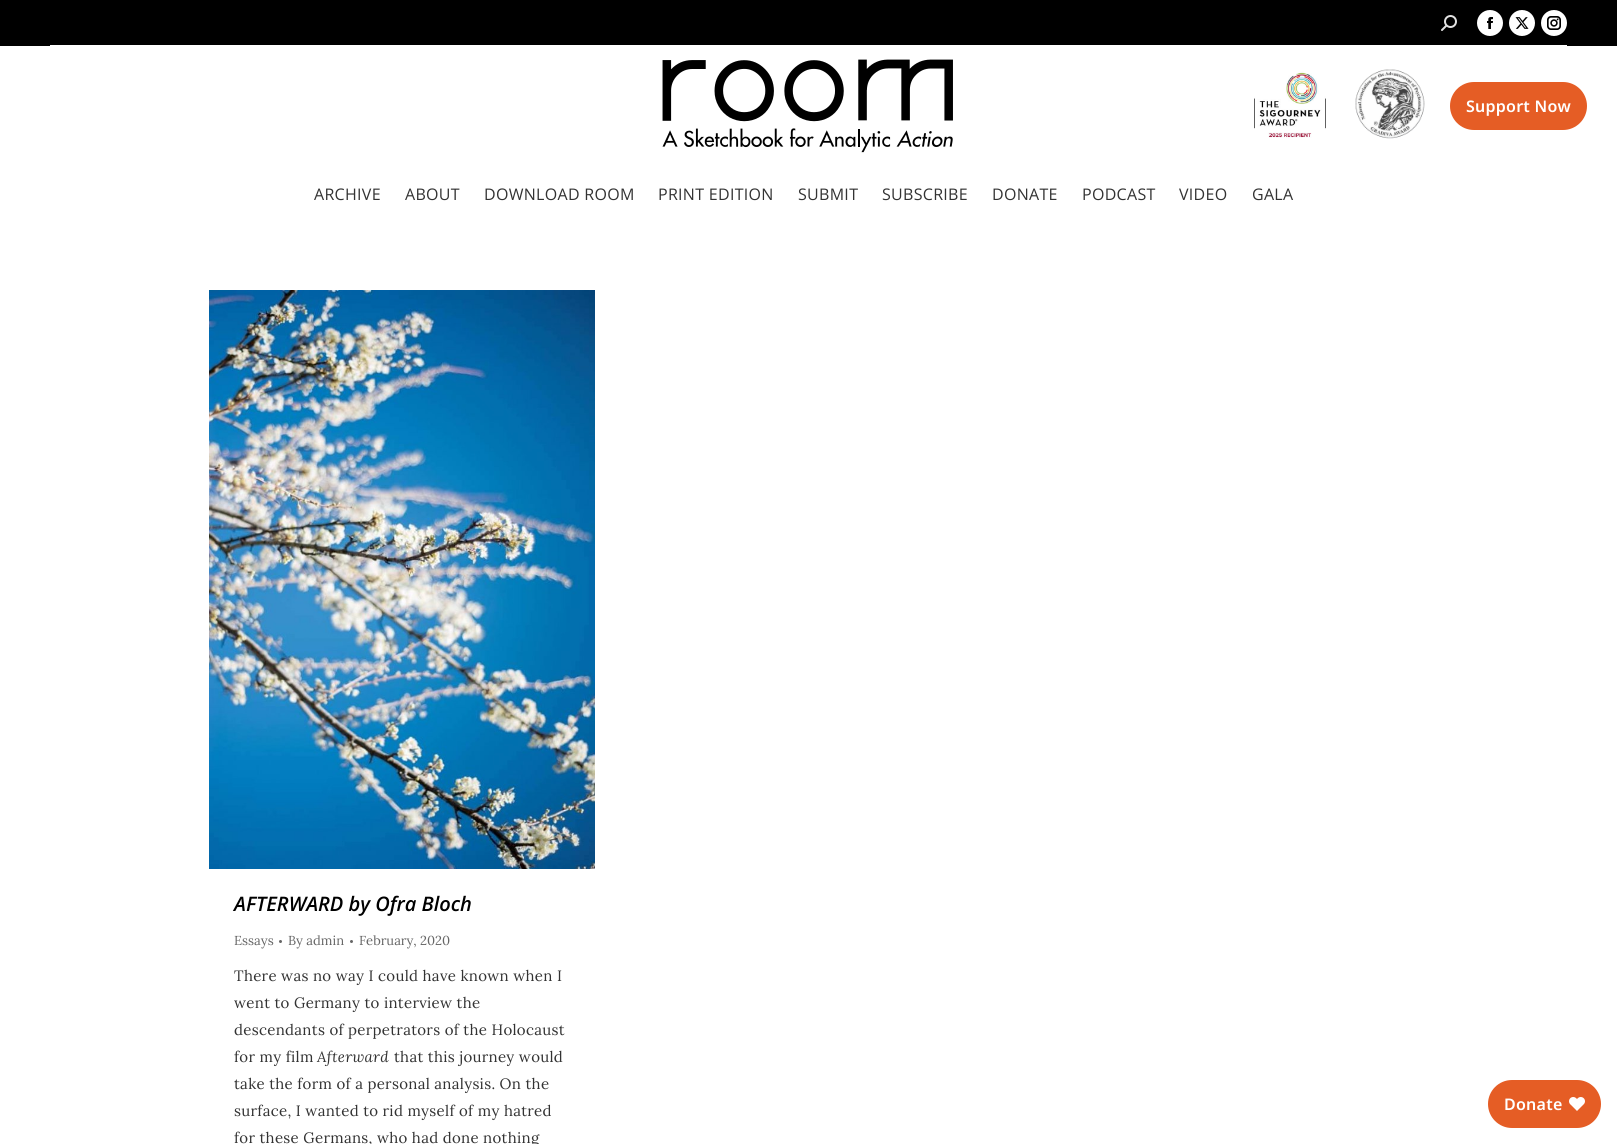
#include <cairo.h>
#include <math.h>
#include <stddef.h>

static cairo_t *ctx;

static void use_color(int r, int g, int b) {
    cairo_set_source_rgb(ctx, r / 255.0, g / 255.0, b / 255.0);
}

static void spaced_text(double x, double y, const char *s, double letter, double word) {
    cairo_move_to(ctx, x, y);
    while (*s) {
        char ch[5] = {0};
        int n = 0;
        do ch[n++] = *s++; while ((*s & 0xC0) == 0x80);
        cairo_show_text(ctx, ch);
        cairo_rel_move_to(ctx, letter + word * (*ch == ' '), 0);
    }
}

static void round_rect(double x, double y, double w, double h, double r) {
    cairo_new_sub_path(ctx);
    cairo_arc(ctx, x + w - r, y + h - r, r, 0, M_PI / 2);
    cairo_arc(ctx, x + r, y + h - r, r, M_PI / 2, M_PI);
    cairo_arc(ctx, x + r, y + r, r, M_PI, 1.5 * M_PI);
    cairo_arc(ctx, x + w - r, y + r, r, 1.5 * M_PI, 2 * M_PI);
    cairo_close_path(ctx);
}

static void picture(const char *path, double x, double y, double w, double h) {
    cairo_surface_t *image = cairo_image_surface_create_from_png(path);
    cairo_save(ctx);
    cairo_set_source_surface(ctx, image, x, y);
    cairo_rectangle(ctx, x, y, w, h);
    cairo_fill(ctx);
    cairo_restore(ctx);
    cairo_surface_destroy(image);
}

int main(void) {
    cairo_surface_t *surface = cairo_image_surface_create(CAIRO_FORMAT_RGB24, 1617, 1144);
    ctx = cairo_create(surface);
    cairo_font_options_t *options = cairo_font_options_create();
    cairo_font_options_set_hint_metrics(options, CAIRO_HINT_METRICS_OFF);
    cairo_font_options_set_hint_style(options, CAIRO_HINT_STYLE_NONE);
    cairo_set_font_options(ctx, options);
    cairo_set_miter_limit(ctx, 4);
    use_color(255, 255, 255);
    cairo_paint(ctx);
    use_color(0, 0, 0);
    cairo_rectangle(ctx, 0, 0, 1617, 46);
    cairo_fill(ctx);
    picture("img1.png", 1441, 15, 16, 16);
    use_color(255, 255, 255);
    cairo_arc(ctx, 1490, 23, 13, 0, 2 * M_PI);
    cairo_fill(ctx);
    picture("img2.png", 1487, 17, 6, 12);
    cairo_arc(ctx, 1522, 23, 13, 0, 2 * M_PI);
    cairo_fill(ctx);
    picture("img3.png", 1515, 17, 14, 12);
    cairo_arc(ctx, 1554, 23, 13, 0, 2 * M_PI);
    cairo_fill(ctx);
    picture("img4.png", 1547, 16, 14, 14);
    cairo_rectangle(ctx, 50, 45, 1517, 1);
    cairo_fill(ctx);
    picture("img5.png", 662, 59, 291, 94);
    picture("img6.png", 1254, 71, 72, 67);
    picture("img7.png", 1355, 69, 70, 70);
    use_color(229, 93, 37);
    round_rect(1450, 82, 137, 48, 24);
    cairo_fill(ctx);
    cairo_select_font_face(ctx, "Noto Sans SemiBold", CAIRO_FONT_SLANT_NORMAL, CAIRO_FONT_WEIGHT_NORMAL);
    cairo_set_font_size(ctx, 16);
    use_color(255, 255, 255);
    spaced_text(1466, 112, "Support Now", 0.25, 0);
    cairo_select_font_face(ctx, "Open Sans", CAIRO_FONT_SLANT_NORMAL, CAIRO_FONT_WEIGHT_NORMAL);
    use_color(51, 51, 51);
    spaced_text(314, 200, "ARCHIVE", 0.3, 0);
    spaced_text(405, 200, "ABOUT", 0.3, 0);
    spaced_text(484, 200, "DOWNLOAD ROOM", 0.3, 0);
    spaced_text(658, 200, "PRINT EDITION", 0.3, 0);
    spaced_text(798, 200, "SUBMIT", 0.3, 0);
    spaced_text(882, 200, "SUBSCRIBE", 0.3, 0);
    spaced_text(992, 200, "DONATE", 0.3, 0);
    spaced_text(1082, 200, "PODCAST", 0.3, 0);
    spaced_text(1179, 200, "VIDEO", 0.3, 0);
    spaced_text(1252, 200, "GALA", 0.3, 0);
    picture("img8.png", 209, 290, 386, 579);
    cairo_select_font_face(ctx, "Open Sans SemiBold", CAIRO_FONT_SLANT_ITALIC, CAIRO_FONT_WEIGHT_NORMAL);
    cairo_set_font_size(ctx, 20);
    use_color(0, 0, 0);
    cairo_move_to(ctx, 234, 911);
    cairo_show_text(ctx, "AFTERWARD by Ofra Bloch");
    cairo_select_font_face(ctx, "Lora", CAIRO_FONT_SLANT_NORMAL, CAIRO_FONT_WEIGHT_NORMAL);
    cairo_set_font_size(ctx, 13);
    use_color(102, 102, 102);
    cairo_move_to(ctx, 234, 945);
    cairo_show_text(ctx, "Essays");
    cairo_new_path(ctx);
    cairo_arc(ctx, 280.5, 941.5, 1.5, 0, 2 * M_PI);
    cairo_fill(ctx);
    cairo_move_to(ctx, 288, 945);
    cairo_show_text(ctx, "By admin");
    cairo_new_path(ctx);
    cairo_arc(ctx, 351.5, 941.5, 1.5, 0, 2 * M_PI);
    cairo_fill(ctx);
    cairo_move_to(ctx, 359, 945);
    cairo_show_text(ctx, "February, 2020");
    cairo_set_font_size(ctx, 15);
    use_color(51, 51, 51);
    spaced_text(234, 981, "There was no way I could have known when I", 0.3, 0);
    spaced_text(234, 1008, "went to Germany to interview the", 0.3, 0);
    spaced_text(234, 1035, "descendants of perpetrators of the Holocaust", 0.3, 0);
    spaced_text(234, 1062, "for my film", 0.3, 0);
    cairo_select_font_face(ctx, "Lora", CAIRO_FONT_SLANT_ITALIC, CAIRO_FONT_WEIGHT_NORMAL);
    spaced_text(317, 1062, "Afterward", 0.3, 0);
    cairo_select_font_face(ctx, "Lora", CAIRO_FONT_SLANT_NORMAL, CAIRO_FONT_WEIGHT_NORMAL);
    spaced_text(394, 1062, "that this journey would", 0.3, 0);
    spaced_text(234, 1089, "take the form of a personal analysis. On the", 0.3, 0);
    spaced_text(234, 1116, "surface, I wanted to rid myself of my hatred", 0.3, 0);
    spaced_text(234, 1143, "for these Germans, who had done nothing", 0.3, 0);
    use_color(229, 93, 37);
    round_rect(1488, 1080, 113, 48, 24);
    cairo_fill(ctx);
    cairo_select_font_face(ctx, "Noto Sans SemiBold", CAIRO_FONT_SLANT_NORMAL, CAIRO_FONT_WEIGHT_NORMAL);
    cairo_set_font_size(ctx, 16);
    use_color(255, 255, 255);
    spaced_text(1504, 1110, "Donate", 0.25, 0);
    picture("img9.png", 1569, 1097, 16, 14);
    cairo_surface_write_to_png(surface, "result.png");
    cairo_font_options_destroy(options);
    cairo_destroy(ctx);
    cairo_surface_destroy(surface);
    return 0;
}
